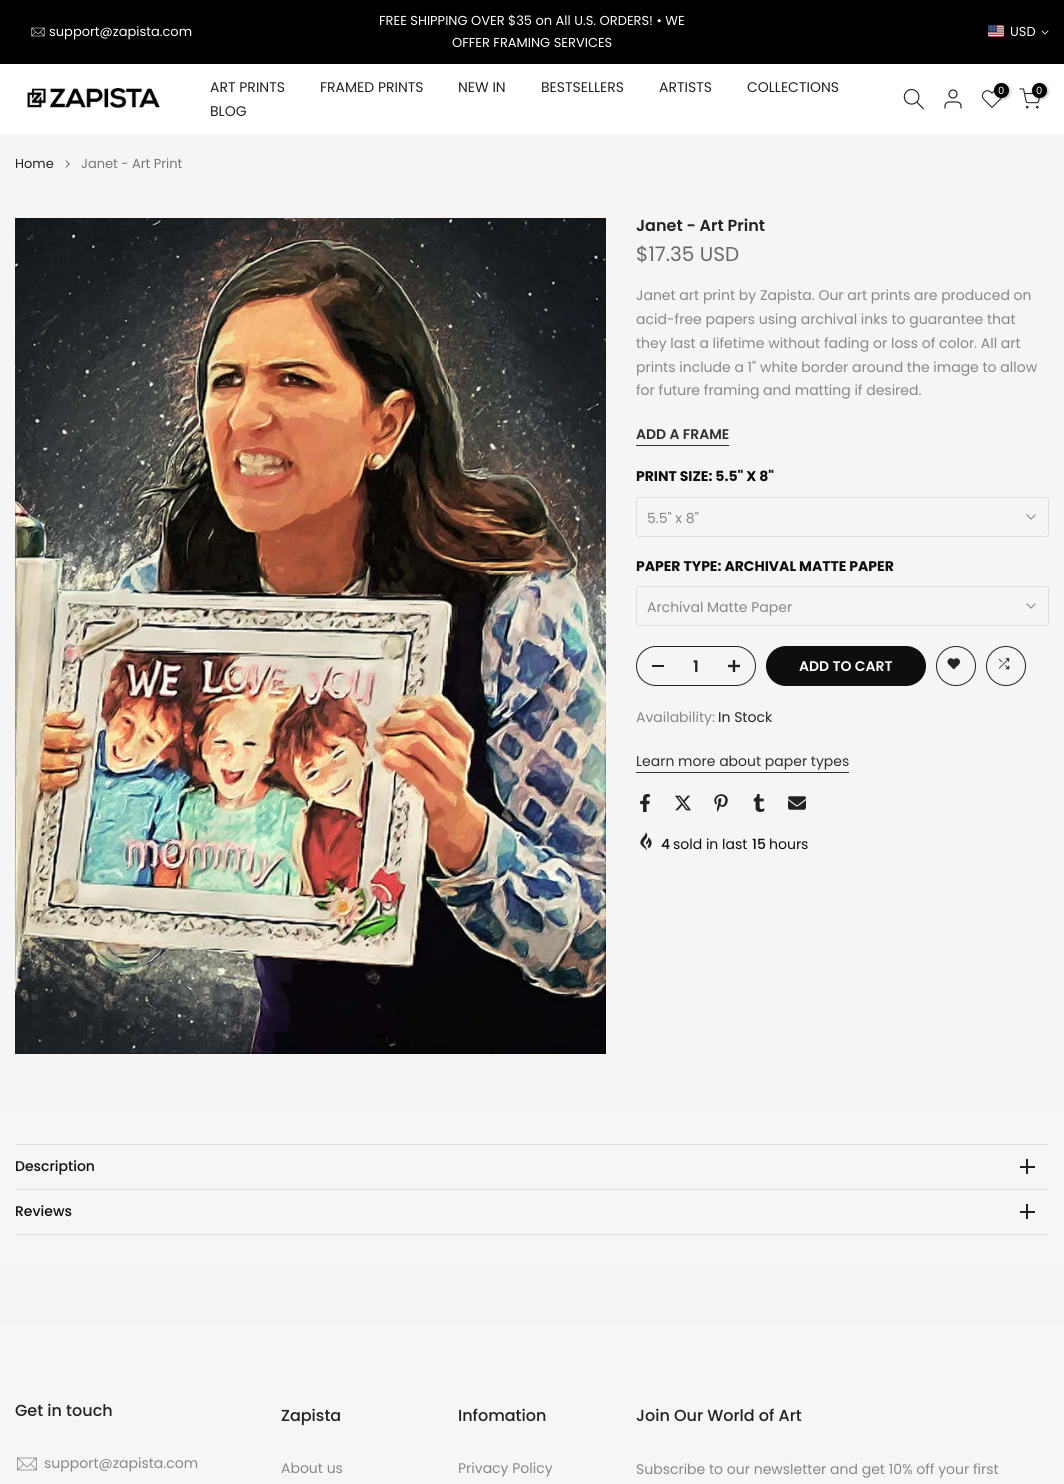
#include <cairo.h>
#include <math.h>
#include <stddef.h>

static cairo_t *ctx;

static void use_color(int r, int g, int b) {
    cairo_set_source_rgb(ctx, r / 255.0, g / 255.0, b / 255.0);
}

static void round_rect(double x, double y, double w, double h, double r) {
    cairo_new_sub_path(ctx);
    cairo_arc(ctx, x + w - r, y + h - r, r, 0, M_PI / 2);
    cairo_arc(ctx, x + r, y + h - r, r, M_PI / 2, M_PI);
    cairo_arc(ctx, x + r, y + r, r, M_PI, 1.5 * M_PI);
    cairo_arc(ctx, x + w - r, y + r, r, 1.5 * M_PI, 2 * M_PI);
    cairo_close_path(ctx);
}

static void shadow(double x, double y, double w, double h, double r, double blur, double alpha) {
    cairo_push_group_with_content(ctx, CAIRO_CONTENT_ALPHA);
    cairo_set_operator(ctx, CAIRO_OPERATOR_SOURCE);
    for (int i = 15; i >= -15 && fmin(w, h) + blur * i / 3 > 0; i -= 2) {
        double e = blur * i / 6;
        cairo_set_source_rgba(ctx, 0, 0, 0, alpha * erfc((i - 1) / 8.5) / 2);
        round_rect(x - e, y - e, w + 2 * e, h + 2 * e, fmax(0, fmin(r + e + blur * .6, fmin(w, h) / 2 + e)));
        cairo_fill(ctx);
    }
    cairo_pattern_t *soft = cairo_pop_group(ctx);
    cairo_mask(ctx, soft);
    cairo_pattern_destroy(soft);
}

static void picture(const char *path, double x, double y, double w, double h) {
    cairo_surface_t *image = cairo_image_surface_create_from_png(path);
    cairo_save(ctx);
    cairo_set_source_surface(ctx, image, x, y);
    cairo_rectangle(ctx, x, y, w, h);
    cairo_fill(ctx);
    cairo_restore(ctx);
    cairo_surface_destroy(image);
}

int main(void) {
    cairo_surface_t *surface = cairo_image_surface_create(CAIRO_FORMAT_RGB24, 1064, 1484);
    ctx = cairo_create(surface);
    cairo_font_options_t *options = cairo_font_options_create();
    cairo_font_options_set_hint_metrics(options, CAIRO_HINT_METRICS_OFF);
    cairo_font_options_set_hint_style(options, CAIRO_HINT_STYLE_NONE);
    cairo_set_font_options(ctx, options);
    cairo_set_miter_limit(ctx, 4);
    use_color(245, 245, 245);
    cairo_paint(ctx);
    use_color(0, 0, 0);
    cairo_rectangle(ctx, 0, 0, 1064, 64);
    cairo_fill(ctx);
    picture("img1.png", 31, 27, 14, 10);
    cairo_select_font_face(ctx, "Poppins", CAIRO_FONT_SLANT_NORMAL, CAIRO_FONT_WEIGHT_NORMAL);
    cairo_set_font_size(ctx, 13);
    use_color(255, 255, 255);
    cairo_move_to(ctx, 49, 36);
    cairo_show_text(ctx, "support@zapista.com");
    cairo_move_to(ctx, 379, 25);
    cairo_show_text(ctx, "FREE SHIPPING OVER $35 on All U.S. ORDERS! • WE");
    cairo_move_to(ctx, 452, 47);
    cairo_show_text(ctx, "OFFER FRAMING SERVICES");
    picture("img2.png", 988, 25, 16, 12);
    cairo_move_to(ctx, 1010, 36);
    cairo_show_text(ctx, "USD");
    cairo_new_path(ctx);
    cairo_move_to(ctx, 1048, 31);
    cairo_line_to(ctx, 1045, 34);
    cairo_line_to(ctx, 1042, 31);
    cairo_set_line_width(ctx, 0.8);
    cairo_set_line_cap(ctx, CAIRO_LINE_CAP_SQUARE);
    cairo_stroke(ctx);
    cairo_rectangle(ctx, 0, 64, 1064, 70);
    cairo_fill(ctx);
    picture("img3.png", 27, 88, 133, 20);
    cairo_set_font_size(ctx, 14);
    use_color(34, 34, 34);
    cairo_move_to(ctx, 210, 92);
    cairo_show_text(ctx, "ART PRINTS");
    cairo_move_to(ctx, 320, 92);
    cairo_show_text(ctx, "FRAMED PRINTS");
    cairo_move_to(ctx, 458, 92);
    cairo_show_text(ctx, "NEW IN");
    cairo_move_to(ctx, 541, 92);
    cairo_show_text(ctx, "BESTSELLERS");
    cairo_move_to(ctx, 659, 92);
    cairo_show_text(ctx, "ARTISTS");
    cairo_move_to(ctx, 747, 92);
    cairo_show_text(ctx, "COLLECTIONS");
    cairo_move_to(ctx, 210, 116);
    cairo_show_text(ctx, "BLOG");
    picture("img4.png", 903, 88, 21, 22);
    picture("img5.png", 944, 89, 18, 20);
    picture("img6.png", 981, 90, 21, 18);
    use_color(0, 0, 0);
    shadow(995, 84, 15, 15, 7.5, 1.5, 0.3);
    use_color(0, 0, 0);
    cairo_arc(ctx, 1001.5, 90.5, 7.5, 0, 2 * M_PI);
    cairo_fill(ctx);
    cairo_set_font_size(ctx, 10);
    use_color(255, 255, 255);
    cairo_move_to(ctx, 998, 94);
    cairo_show_text(ctx, "0");
    picture("img7.png", 1019, 88, 21, 21);
    use_color(0, 0, 0);
    shadow(1033, 84, 15, 15, 7.5, 1.5, 0.3);
    use_color(0, 0, 0);
    cairo_arc(ctx, 1039.5, 90.5, 7.5, 0, 2 * M_PI);
    cairo_fill(ctx);
    use_color(255, 255, 255);
    cairo_move_to(ctx, 1036, 94);
    cairo_show_text(ctx, "0");
    cairo_set_font_size(ctx, 13);
    use_color(34, 34, 34);
    cairo_move_to(ctx, 15, 168);
    cairo_show_text(ctx, "Home");
    picture("img8.png", 65, 160, 5, 8);
    use_color(118, 118, 118);
    cairo_move_to(ctx, 81, 168);
    cairo_show_text(ctx, "Janet - Art Print");
    picture("img9.png", 15, 218, 591, 836);
    cairo_select_font_face(ctx, "Poppins SemiBold", CAIRO_FONT_SLANT_NORMAL, CAIRO_FONT_WEIGHT_NORMAL);
    cairo_set_font_size(ctx, 16);
    use_color(34, 34, 34);
    cairo_move_to(ctx, 636, 231);
    cairo_show_text(ctx, "Janet - Art Print");
    cairo_select_font_face(ctx, "Poppins", CAIRO_FONT_SLANT_NORMAL, CAIRO_FONT_WEIGHT_NORMAL);
    cairo_set_font_size(ctx, 20);
    use_color(105, 105, 105);
    cairo_move_to(ctx, 636, 261);
    cairo_show_text(ctx, "$17.35 USD");
    cairo_set_font_size(ctx, 14);
    use_color(135, 135, 135);
    cairo_move_to(ctx, 636, 300);
    cairo_show_text(ctx, "Janet art print by Zapista. Our art prints are produced on");
    cairo_move_to(ctx, 636, 324);
    cairo_show_text(ctx, "acid-free papers using archival inks to guarantee that");
    cairo_move_to(ctx, 636, 348);
    cairo_show_text(ctx, "they last a lifetime without fading or loss of color. All art");
    cairo_move_to(ctx, 636, 372);
    cairo_show_text(ctx, "prints include a 1\" white border around the image to allow");
    cairo_move_to(ctx, 636, 395);
    cairo_show_text(ctx, "for future framing and matting if desired.");
    cairo_select_font_face(ctx, "Poppins SemiBold", CAIRO_FONT_SLANT_NORMAL, CAIRO_FONT_WEIGHT_NORMAL);
    use_color(48, 48, 48);
    cairo_move_to(ctx, 636, 439);
    cairo_show_text(ctx, "ADD A FRAME");
    cairo_rectangle(ctx, 636, 445, 93, 1);
    cairo_fill(ctx);
    cairo_select_font_face(ctx, "Poppins", CAIRO_FONT_SLANT_NORMAL, CAIRO_FONT_WEIGHT_BOLD);
    use_color(14, 14, 14);
    cairo_move_to(ctx, 636, 481);
    cairo_show_text(ctx, "PRINT SIZE: 5.5\" X 8\"");
    round_rect(636.5, 497.5, 412, 39, 2.5);
    use_color(221, 221, 221);
    cairo_set_line_width(ctx, 1);
    cairo_set_line_cap(ctx, CAIRO_LINE_CAP_BUTT);
    cairo_stroke(ctx);
    cairo_select_font_face(ctx, "Poppins", CAIRO_FONT_SLANT_NORMAL, CAIRO_FONT_WEIGHT_NORMAL);
    use_color(135, 135, 135);
    cairo_move_to(ctx, 647, 523);
    cairo_show_text(ctx, "5.5\" x 8\"");
    cairo_new_path(ctx);
    cairo_move_to(ctx, 1035, 515);
    cairo_line_to(ctx, 1031, 519);
    cairo_line_to(ctx, 1027, 515);
    cairo_set_line_width(ctx, 1.1);
    cairo_set_line_cap(ctx, CAIRO_LINE_CAP_SQUARE);
    cairo_stroke(ctx);
    cairo_select_font_face(ctx, "Poppins", CAIRO_FONT_SLANT_NORMAL, CAIRO_FONT_WEIGHT_BOLD);
    use_color(14, 14, 14);
    cairo_move_to(ctx, 636, 571);
    cairo_show_text(ctx, "PAPER TYPE: ARCHIVAL MATTE PAPER");
    round_rect(636.5, 586.5, 412, 39, 2.5);
    use_color(221, 221, 221);
    cairo_set_line_width(ctx, 1);
    cairo_set_line_cap(ctx, CAIRO_LINE_CAP_BUTT);
    cairo_stroke(ctx);
    cairo_select_font_face(ctx, "Poppins", CAIRO_FONT_SLANT_NORMAL, CAIRO_FONT_WEIGHT_NORMAL);
    use_color(135, 135, 135);
    cairo_move_to(ctx, 647, 612);
    cairo_show_text(ctx, "Archival Matte Paper");
    cairo_new_path(ctx);
    cairo_move_to(ctx, 1035, 604);
    cairo_line_to(ctx, 1031, 608);
    cairo_line_to(ctx, 1027, 604);
    cairo_set_line_width(ctx, 1.1);
    cairo_set_line_cap(ctx, CAIRO_LINE_CAP_SQUARE);
    cairo_stroke(ctx);
    round_rect(636.5, 646.5, 119, 39, 19.5);
    use_color(34, 34, 34);
    cairo_set_line_width(ctx, 1);
    cairo_set_line_cap(ctx, CAIRO_LINE_CAP_BUTT);
    cairo_stroke(ctx);
    cairo_rectangle(ctx, 652, 665, 12, 2);
    cairo_fill(ctx);
    cairo_select_font_face(ctx, "Poppins SemiBold", CAIRO_FONT_SLANT_NORMAL, CAIRO_FONT_WEIGHT_NORMAL);
    cairo_set_font_size(ctx, 16);
    cairo_move_to(ctx, 693, 672);
    cairo_show_text(ctx, "1");
    picture("img10.png", 728, 660, 12, 12);
    use_color(14, 14, 14);
    round_rect(766, 646, 160, 40, 20);
    cairo_fill(ctx);
    cairo_set_font_size(ctx, 14);
    use_color(255, 255, 255);
    cairo_move_to(ctx, 799, 671);
    cairo_show_text(ctx, "ADD TO CART");
    cairo_new_path(ctx);
    cairo_arc(ctx, 956, 666, 19.5, 0, 2 * M_PI);
    use_color(34, 34, 34);
    cairo_stroke(ctx);
    picture("img11.png", 947, 658, 13, 12);
    cairo_arc(ctx, 1006, 666, 19.5, 0, 2 * M_PI);
    cairo_stroke(ctx);
    picture("img12.png", 998, 658, 12, 12);
    cairo_select_font_face(ctx, "Poppins", CAIRO_FONT_SLANT_NORMAL, CAIRO_FONT_WEIGHT_NORMAL);
    use_color(135, 135, 135);
    cairo_move_to(ctx, 636, 722);
    cairo_show_text(ctx, "Availability:");
    use_color(34, 34, 34);
    cairo_move_to(ctx, 718, 722);
    cairo_show_text(ctx, "In Stock");
    use_color(48, 48, 48);
    cairo_move_to(ctx, 636, 766);
    cairo_show_text(ctx, "Learn more about paper types");
    cairo_rectangle(ctx, 636, 772, 213, 1);
    cairo_fill(ctx);
    picture("img13.png", 640, 794, 10, 18);
    picture("img14.png", 675, 795, 16, 16);
    picture("img15.png", 714, 794, 14, 18);
    picture("img16.png", 753, 794, 12, 18);
    picture("img17.png", 788, 796, 18, 14);
    picture("img18.png", 640, 832, 12, 19);
    cairo_select_font_face(ctx, "Poppins Medium", CAIRO_FONT_SLANT_NORMAL, CAIRO_FONT_WEIGHT_NORMAL);
    use_color(14, 14, 14);
    cairo_move_to(ctx, 661, 849);
    cairo_show_text(ctx, "4");
    cairo_select_font_face(ctx, "Poppins", CAIRO_FONT_SLANT_NORMAL, CAIRO_FONT_WEIGHT_NORMAL);
    cairo_move_to(ctx, 673, 849);
    cairo_show_text(ctx, "sold in last");
    cairo_select_font_face(ctx, "Poppins Medium", CAIRO_FONT_SLANT_NORMAL, CAIRO_FONT_WEIGHT_NORMAL);
    cairo_move_to(ctx, 752, 849);
    cairo_show_text(ctx, "15");
    cairo_select_font_face(ctx, "Poppins", CAIRO_FONT_SLANT_NORMAL, CAIRO_FONT_WEIGHT_NORMAL);
    cairo_move_to(ctx, 769, 849);
    cairo_show_text(ctx, "hours");
    use_color(246, 246, 248);
    cairo_rectangle(ctx, 0, 1114, 1064, 151);
    cairo_fill(ctx);
    use_color(221, 221, 221);
    cairo_rectangle(ctx, 15, 1144, 1034, 1);
    cairo_fill(ctx);
    cairo_rectangle(ctx, 15, 1189, 1034, 1);
    cairo_fill(ctx);
    cairo_select_font_face(ctx, "Poppins Medium", CAIRO_FONT_SLANT_NORMAL, CAIRO_FONT_WEIGHT_NORMAL);
    use_color(14, 14, 14);
    cairo_move_to(ctx, 15, 1171);
    cairo_show_text(ctx, "Description");
    use_color(34, 34, 34);
    cairo_rectangle(ctx, 1026, 1159, 2, 15);
    cairo_fill(ctx);
    cairo_rectangle(ctx, 1020, 1166, 15, 2);
    cairo_fill(ctx);
    use_color(221, 221, 221);
    cairo_rectangle(ctx, 15, 1234, 1034, 1);
    cairo_fill(ctx);
    use_color(14, 14, 14);
    cairo_move_to(ctx, 15, 1216);
    cairo_show_text(ctx, "Reviews");
    use_color(34, 34, 34);
    cairo_rectangle(ctx, 1026, 1204, 2, 15);
    cairo_fill(ctx);
    cairo_rectangle(ctx, 1020, 1211, 15, 2);
    cairo_fill(ctx);
    use_color(246, 246, 248);
    cairo_rectangle(ctx, 0, 1325, 1064, 159);
    cairo_fill(ctx);
    cairo_set_font_size(ctx, 16);
    use_color(34, 34, 34);
    cairo_move_to(ctx, 15, 1416);
    cairo_show_text(ctx, "Get in touch");
    picture("img19.png", 17, 1457, 20, 14);
    cairo_select_font_face(ctx, "Poppins", CAIRO_FONT_SLANT_NORMAL, CAIRO_FONT_WEIGHT_NORMAL);
    cairo_set_font_size(ctx, 14);
    use_color(135, 135, 135);
    cairo_move_to(ctx, 44, 1468);
    cairo_show_text(ctx, "support@zapista.com");
    cairo_select_font_face(ctx, "Poppins Medium", CAIRO_FONT_SLANT_NORMAL, CAIRO_FONT_WEIGHT_NORMAL);
    cairo_set_font_size(ctx, 16);
    use_color(34, 34, 34);
    cairo_move_to(ctx, 281, 1421);
    cairo_show_text(ctx, "Zapista");
    cairo_select_font_face(ctx, "Poppins", CAIRO_FONT_SLANT_NORMAL, CAIRO_FONT_WEIGHT_NORMAL);
    cairo_set_font_size(ctx, 14);
    use_color(135, 135, 135);
    cairo_move_to(ctx, 281, 1473);
    cairo_show_text(ctx, "About us");
    cairo_select_font_face(ctx, "Poppins Medium", CAIRO_FONT_SLANT_NORMAL, CAIRO_FONT_WEIGHT_NORMAL);
    cairo_set_font_size(ctx, 16);
    use_color(34, 34, 34);
    cairo_move_to(ctx, 458, 1421);
    cairo_show_text(ctx, "Infomation");
    cairo_select_font_face(ctx, "Poppins", CAIRO_FONT_SLANT_NORMAL, CAIRO_FONT_WEIGHT_NORMAL);
    cairo_set_font_size(ctx, 14);
    use_color(135, 135, 135);
    cairo_move_to(ctx, 458, 1473);
    cairo_show_text(ctx, "Privacy Policy");
    cairo_select_font_face(ctx, "Poppins Medium", CAIRO_FONT_SLANT_NORMAL, CAIRO_FONT_WEIGHT_NORMAL);
    cairo_set_font_size(ctx, 16);
    use_color(34, 34, 34);
    cairo_move_to(ctx, 636, 1421);
    cairo_show_text(ctx, "Join Our World of Art");
    cairo_select_font_face(ctx, "Poppins", CAIRO_FONT_SLANT_NORMAL, CAIRO_FONT_WEIGHT_NORMAL);
    cairo_set_font_size(ctx, 14);
    use_color(135, 135, 135);
    cairo_move_to(ctx, 636, 1474);
    cairo_show_text(ctx, "Subscribe to our newsletter and get 10% off your first");
    cairo_surface_write_to_png(surface, "result.png");
    cairo_font_options_destroy(options);
    cairo_destroy(ctx);
    cairo_surface_destroy(surface);
    return 0;
}
